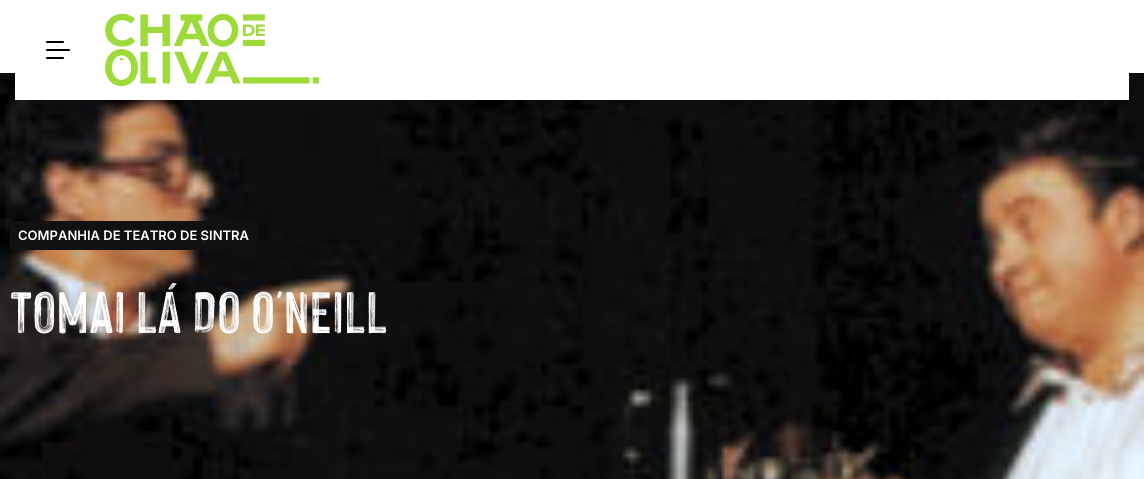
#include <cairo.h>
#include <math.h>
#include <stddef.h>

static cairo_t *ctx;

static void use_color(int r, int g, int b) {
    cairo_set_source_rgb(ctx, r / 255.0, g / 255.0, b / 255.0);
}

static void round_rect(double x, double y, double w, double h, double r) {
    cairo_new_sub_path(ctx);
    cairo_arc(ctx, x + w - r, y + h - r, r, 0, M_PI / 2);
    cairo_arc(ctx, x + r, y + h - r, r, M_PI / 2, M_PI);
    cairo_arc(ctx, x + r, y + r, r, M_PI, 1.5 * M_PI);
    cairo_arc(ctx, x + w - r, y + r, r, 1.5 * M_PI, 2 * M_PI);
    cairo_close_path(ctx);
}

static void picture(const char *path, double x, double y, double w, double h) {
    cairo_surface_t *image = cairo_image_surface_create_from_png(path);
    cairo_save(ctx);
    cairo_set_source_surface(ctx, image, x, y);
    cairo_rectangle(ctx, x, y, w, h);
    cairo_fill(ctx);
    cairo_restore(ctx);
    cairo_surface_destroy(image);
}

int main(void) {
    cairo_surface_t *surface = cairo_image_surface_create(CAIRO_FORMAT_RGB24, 1144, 479);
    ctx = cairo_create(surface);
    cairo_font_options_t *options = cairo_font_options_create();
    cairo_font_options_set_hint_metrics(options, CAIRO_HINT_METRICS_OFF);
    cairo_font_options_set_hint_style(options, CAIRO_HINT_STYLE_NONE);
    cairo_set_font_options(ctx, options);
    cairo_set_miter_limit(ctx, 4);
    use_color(255, 255, 255);
    cairo_paint(ctx);
    picture("img2.png", 0, 73, 1144, 406);
    use_color(255, 255, 255);
    cairo_rectangle(ctx, 15, 73, 1114, 27);
    cairo_fill(ctx);
    use_color(0, 0, 0);
    round_rect(46, 49, 24, 2, 1);
    cairo_fill(ctx);
    round_rect(46, 41, 18, 2, 1);
    cairo_fill(ctx);
    round_rect(46, 57, 18, 2, 1);
    cairo_fill(ctx);
    picture("img1.png", 105, 13, 214, 74);
    use_color(17, 17, 17);
    cairo_rectangle(ctx, 10, 221, 247, 29);
    cairo_fill(ctx);
    cairo_select_font_face(ctx, "Inter SemiBold", CAIRO_FONT_SLANT_NORMAL, CAIRO_FONT_WEIGHT_NORMAL);
    cairo_set_font_size(ctx, 13);
    use_color(255, 255, 255);
    cairo_move_to(ctx, 18, 240);
    cairo_show_text(ctx, "COMPANHIA DE TEATRO DE SINTRA");
    cairo_select_font_face(ctx, "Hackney", CAIRO_FONT_SLANT_NORMAL, CAIRO_FONT_WEIGHT_BOLD);
    cairo_set_font_size(ctx, 64);
    cairo_move_to(ctx, 10, 333);
    cairo_show_text(ctx, "TOMAI LÁ DO O'NEILL");
    cairo_surface_write_to_png(surface, "result.png");
    cairo_font_options_destroy(options);
    cairo_destroy(ctx);
    cairo_surface_destroy(surface);
    return 0;
}
